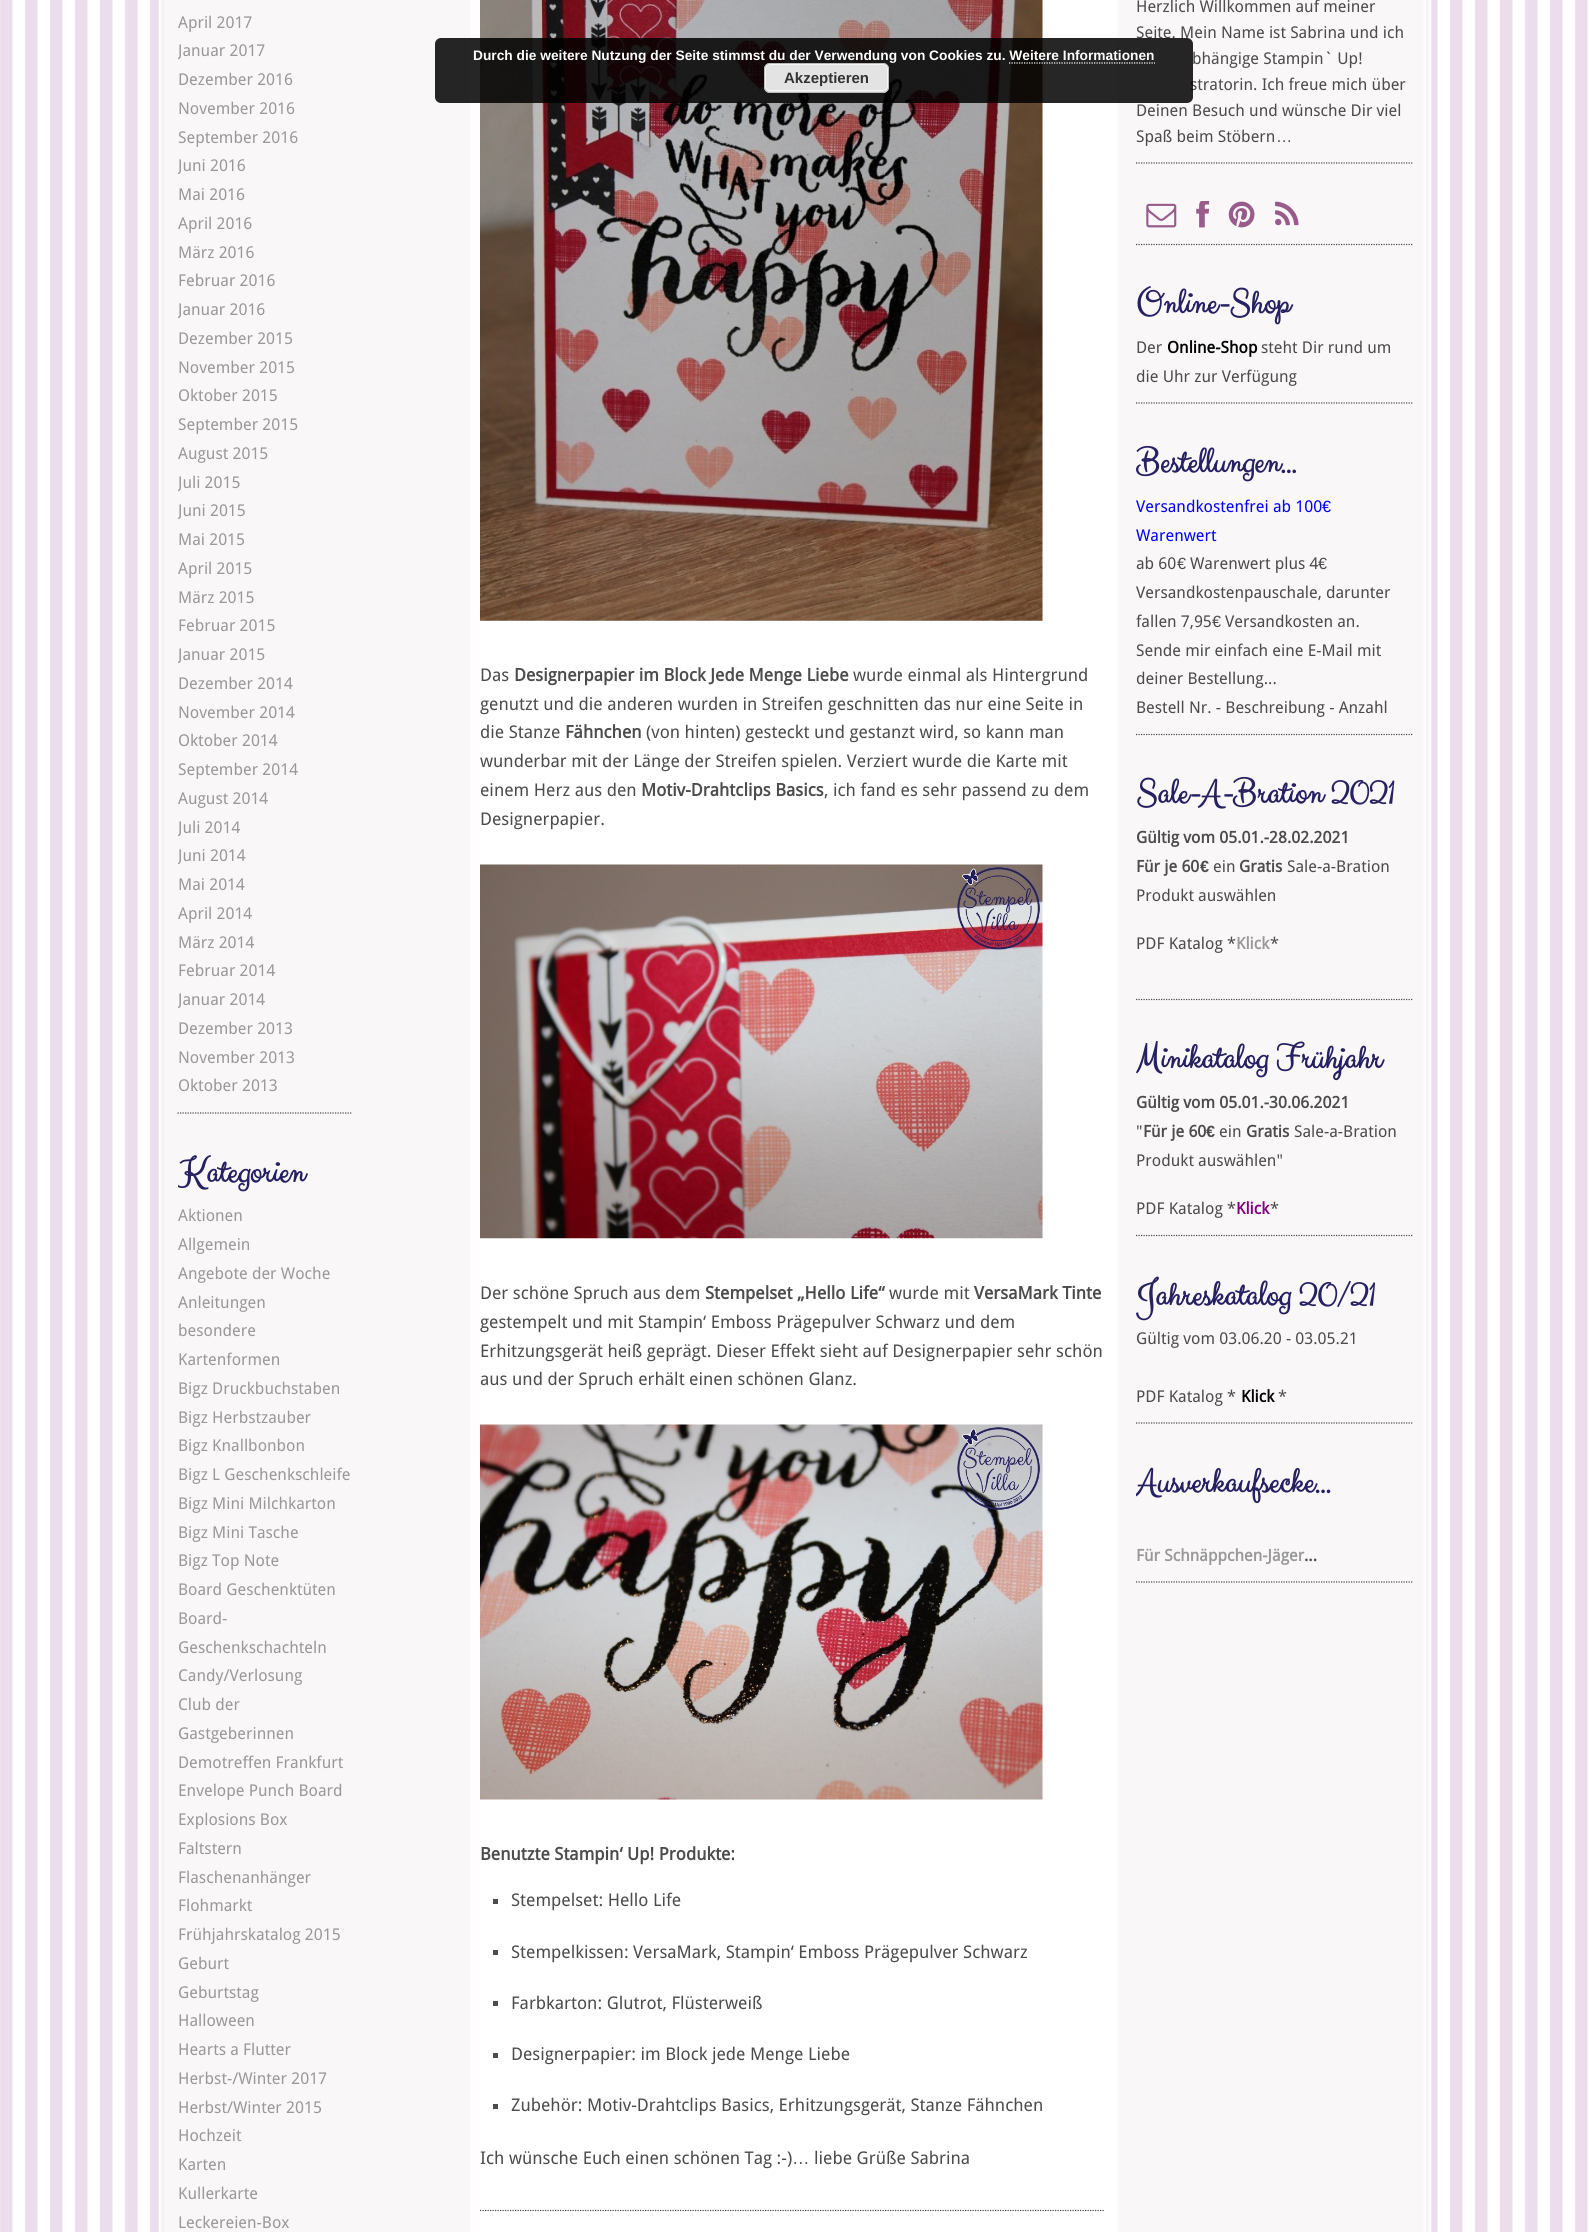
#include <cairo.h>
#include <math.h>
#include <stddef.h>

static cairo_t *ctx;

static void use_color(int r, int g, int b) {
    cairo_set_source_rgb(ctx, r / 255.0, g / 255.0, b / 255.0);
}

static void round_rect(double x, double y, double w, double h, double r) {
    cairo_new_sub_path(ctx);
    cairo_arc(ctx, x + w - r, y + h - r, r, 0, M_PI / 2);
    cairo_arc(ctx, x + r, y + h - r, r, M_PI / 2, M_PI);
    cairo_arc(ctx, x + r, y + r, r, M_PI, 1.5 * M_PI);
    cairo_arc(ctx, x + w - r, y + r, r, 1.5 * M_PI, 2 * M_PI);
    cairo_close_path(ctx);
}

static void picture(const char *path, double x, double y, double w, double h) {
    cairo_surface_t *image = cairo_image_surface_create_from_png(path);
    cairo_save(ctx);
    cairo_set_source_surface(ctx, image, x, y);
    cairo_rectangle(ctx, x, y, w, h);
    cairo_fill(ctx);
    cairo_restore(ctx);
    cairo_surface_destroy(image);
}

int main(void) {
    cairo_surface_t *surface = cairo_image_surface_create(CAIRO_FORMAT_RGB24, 1589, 2232);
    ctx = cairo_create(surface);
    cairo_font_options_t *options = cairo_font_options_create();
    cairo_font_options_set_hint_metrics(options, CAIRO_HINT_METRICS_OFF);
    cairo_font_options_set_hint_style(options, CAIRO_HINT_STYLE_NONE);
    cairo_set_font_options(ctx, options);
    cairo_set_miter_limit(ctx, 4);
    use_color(255, 255, 255);
    cairo_paint(ctx);
    picture("img1.png", 0, 0, 1588, 2232);
    picture("img2.png", 158, 0, 1274, 2232);
    cairo_new_path(ctx);
    cairo_move_to(ctx, 177.5, 1113);
    cairo_line_to(ctx, 352.5, 1113);
    use_color(76, 76, 76);
    cairo_set_line_width(ctx, 1.2);
    cairo_set_dash(ctx, (double[]){1.25, 1.25}, 2, 0);
    cairo_stroke(ctx);
    cairo_select_font_face(ctx, "Droid Sans", CAIRO_FONT_SLANT_NORMAL, CAIRO_FONT_WEIGHT_NORMAL);
    cairo_set_font_size(ctx, 16.25);
    use_color(153, 153, 153);
    cairo_move_to(ctx, 178, 28);
    cairo_show_text(ctx, "April 2017");
    cairo_save(ctx);
    cairo_rectangle(ctx, 178, 0, 175, 1113);
    cairo_clip(ctx);
    cairo_move_to(ctx, 178, 56);
    cairo_show_text(ctx, "Januar 2017");
    cairo_restore(ctx);
    cairo_move_to(ctx, 178, 85);
    cairo_show_text(ctx, "Dezember 2016");
    cairo_move_to(ctx, 178, 114);
    cairo_show_text(ctx, "November 2016");
    cairo_move_to(ctx, 178, 143);
    cairo_show_text(ctx, "September 2016");
    cairo_save(ctx);
    cairo_rectangle(ctx, 178, 0, 175, 1113);
    cairo_clip(ctx);
    cairo_move_to(ctx, 178, 171);
    cairo_show_text(ctx, "Juni 2016");
    cairo_restore(ctx);
    cairo_move_to(ctx, 178, 200);
    cairo_show_text(ctx, "Mai 2016");
    cairo_move_to(ctx, 178, 229);
    cairo_show_text(ctx, "April 2016");
    cairo_move_to(ctx, 178, 258);
    cairo_show_text(ctx, "März 2016");
    cairo_move_to(ctx, 178, 286);
    cairo_show_text(ctx, "Februar 2016");
    cairo_save(ctx);
    cairo_rectangle(ctx, 178, 0, 175, 1113);
    cairo_clip(ctx);
    cairo_move_to(ctx, 178, 315);
    cairo_show_text(ctx, "Januar 2016");
    cairo_restore(ctx);
    cairo_move_to(ctx, 178, 344);
    cairo_show_text(ctx, "Dezember 2015");
    cairo_move_to(ctx, 178, 373);
    cairo_show_text(ctx, "November 2015");
    cairo_move_to(ctx, 178, 401);
    cairo_show_text(ctx, "Oktober 2015");
    cairo_move_to(ctx, 178, 430);
    cairo_show_text(ctx, "September 2015");
    cairo_move_to(ctx, 178, 459);
    cairo_show_text(ctx, "August 2015");
    cairo_save(ctx);
    cairo_rectangle(ctx, 178, 0, 175, 1113);
    cairo_clip(ctx);
    cairo_move_to(ctx, 178, 488);
    cairo_show_text(ctx, "Juli 2015");
    cairo_move_to(ctx, 178, 516);
    cairo_show_text(ctx, "Juni 2015");
    cairo_restore(ctx);
    cairo_move_to(ctx, 178, 545);
    cairo_show_text(ctx, "Mai 2015");
    cairo_move_to(ctx, 178, 574);
    cairo_show_text(ctx, "April 2015");
    cairo_move_to(ctx, 178, 603);
    cairo_show_text(ctx, "März 2015");
    cairo_move_to(ctx, 178, 631);
    cairo_show_text(ctx, "Februar 2015");
    cairo_save(ctx);
    cairo_rectangle(ctx, 178, 0, 175, 1113);
    cairo_clip(ctx);
    cairo_move_to(ctx, 178, 660);
    cairo_show_text(ctx, "Januar 2015");
    cairo_restore(ctx);
    cairo_move_to(ctx, 178, 689);
    cairo_show_text(ctx, "Dezember 2014");
    cairo_move_to(ctx, 178, 718);
    cairo_show_text(ctx, "November 2014");
    cairo_move_to(ctx, 178, 746);
    cairo_show_text(ctx, "Oktober 2014");
    cairo_move_to(ctx, 178, 775);
    cairo_show_text(ctx, "September 2014");
    cairo_move_to(ctx, 178, 804);
    cairo_show_text(ctx, "August 2014");
    cairo_save(ctx);
    cairo_rectangle(ctx, 178, 0, 175, 1113);
    cairo_clip(ctx);
    cairo_move_to(ctx, 178, 833);
    cairo_show_text(ctx, "Juli 2014");
    cairo_move_to(ctx, 178, 861);
    cairo_show_text(ctx, "Juni 2014");
    cairo_restore(ctx);
    cairo_move_to(ctx, 178, 890);
    cairo_show_text(ctx, "Mai 2014");
    cairo_move_to(ctx, 178, 919);
    cairo_show_text(ctx, "April 2014");
    cairo_move_to(ctx, 178, 948);
    cairo_show_text(ctx, "März 2014");
    cairo_move_to(ctx, 178, 976);
    cairo_show_text(ctx, "Februar 2014");
    cairo_save(ctx);
    cairo_rectangle(ctx, 178, 0, 175, 1113);
    cairo_clip(ctx);
    cairo_move_to(ctx, 178, 1005);
    cairo_show_text(ctx, "Januar 2014");
    cairo_restore(ctx);
    cairo_move_to(ctx, 178, 1034);
    cairo_show_text(ctx, "Dezember 2013");
    cairo_move_to(ctx, 178, 1063);
    cairo_show_text(ctx, "November 2013");
    cairo_move_to(ctx, 178, 1091);
    cairo_show_text(ctx, "Oktober 2013");
    cairo_save(ctx);
    cairo_rectangle(ctx, 178, 1151, 175, 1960);
    cairo_clip(ctx);
    cairo_select_font_face(ctx, "Clicker Script", CAIRO_FONT_SLANT_NORMAL, CAIRO_FONT_WEIGHT_BOLD);
    cairo_set_font_size(ctx, 36.25);
    use_color(38, 34, 98);
    cairo_move_to(ctx, 178, 1183);
    cairo_show_text(ctx, "Kategorien");
    cairo_restore(ctx);
    cairo_move_to(ctx, 178, 1221);
    cairo_show_text(ctx, "Aktionen");
    cairo_move_to(ctx, 178, 1250);
    cairo_show_text(ctx, "Allgemein");
    cairo_move_to(ctx, 178, 1279);
    cairo_show_text(ctx, "Angebote der Woche");
    cairo_move_to(ctx, 178, 1308);
    cairo_show_text(ctx, "Anleitungen");
    cairo_move_to(ctx, 178, 1336);
    cairo_show_text(ctx, "besondere");
    cairo_move_to(ctx, 178, 1365);
    cairo_show_text(ctx, "Kartenformen");
    cairo_move_to(ctx, 178, 1394);
    cairo_show_text(ctx, "Bigz Druckbuchstaben");
    cairo_move_to(ctx, 178, 1423);
    cairo_show_text(ctx, "Bigz Herbstzauber");
    cairo_move_to(ctx, 178, 1451);
    cairo_show_text(ctx, "Bigz Knallbonbon");
    cairo_move_to(ctx, 178, 1480);
    cairo_show_text(ctx, "Bigz L Geschenkschleife");
    cairo_move_to(ctx, 178, 1509);
    cairo_show_text(ctx, "Bigz Mini Milchkarton");
    cairo_move_to(ctx, 178, 1538);
    cairo_show_text(ctx, "Bigz Mini Tasche");
    cairo_move_to(ctx, 178, 1566);
    cairo_show_text(ctx, "Bigz Top Note");
    cairo_move_to(ctx, 178, 1595);
    cairo_show_text(ctx, "Board Geschenktüten");
    cairo_move_to(ctx, 178, 1624);
    cairo_show_text(ctx, "Board-");
    cairo_move_to(ctx, 178, 1653);
    cairo_show_text(ctx, "Geschenkschachteln");
    cairo_move_to(ctx, 178, 1681);
    cairo_show_text(ctx, "Candy/Verlosung");
    cairo_move_to(ctx, 178, 1710);
    cairo_show_text(ctx, "Club der");
    cairo_move_to(ctx, 178, 1739);
    cairo_show_text(ctx, "Gastgeberinnen");
    cairo_move_to(ctx, 178, 1768);
    cairo_show_text(ctx, "Demotreffen Frankfurt");
    cairo_move_to(ctx, 178, 1796);
    cairo_show_text(ctx, "Envelope Punch Board");
    cairo_move_to(ctx, 178, 1825);
    cairo_show_text(ctx, "Explosions Box");
    cairo_move_to(ctx, 178, 1854);
    cairo_show_text(ctx, "Faltstern");
    cairo_move_to(ctx, 178, 1883);
    cairo_show_text(ctx, "Flaschenanhänger");
    cairo_move_to(ctx, 178, 1911);
    cairo_show_text(ctx, "Flohmarkt");
    cairo_move_to(ctx, 178, 1940);
    cairo_show_text(ctx, "Frühjahrskatalog 2015");
    cairo_move_to(ctx, 178, 1969);
    cairo_show_text(ctx, "Geburt");
    cairo_move_to(ctx, 178, 1998);
    cairo_show_text(ctx, "Geburtstag");
    cairo_move_to(ctx, 178, 2026);
    cairo_show_text(ctx, "Halloween");
    cairo_move_to(ctx, 178, 2055);
    cairo_show_text(ctx, "Hearts a Flutter");
    cairo_move_to(ctx, 178, 2084);
    cairo_show_text(ctx, "Herbst-/Winter 2017");
    cairo_move_to(ctx, 178, 2113);
    cairo_show_text(ctx, "Herbst/Winter 2015");
    cairo_move_to(ctx, 178, 2141);
    cairo_show_text(ctx, "Hochzeit");
    cairo_move_to(ctx, 178, 2170);
    cairo_show_text(ctx, "Karten");
    cairo_move_to(ctx, 178, 2199);
    cairo_show_text(ctx, "Kullerkarte");
    cairo_move_to(ctx, 178, 2228);
    cairo_show_text(ctx, "Leckereien-Box");
    picture("img3.png", 480, 0, 563, 621);
    cairo_set_font_size(ctx, 17.5);
    use_color(76, 76, 76);
    cairo_move_to(ctx, 480, 681);
    cairo_show_text(ctx, "Das");
    cairo_select_font_face(ctx, "Droid Sans", CAIRO_FONT_SLANT_NORMAL, CAIRO_FONT_WEIGHT_BOLD);
    cairo_move_to(ctx, 514, 681);
    cairo_show_text(ctx, "Designerpapier im Block Jede Menge Liebe");
    cairo_select_font_face(ctx, "Droid Sans", CAIRO_FONT_SLANT_NORMAL, CAIRO_FONT_WEIGHT_NORMAL);
    cairo_move_to(ctx, 853, 681);
    cairo_show_text(ctx, "wurde einmal als Hintergrund");
    cairo_move_to(ctx, 480, 710);
    cairo_show_text(ctx, "genutzt und die anderen wurden in Streifen geschnitten das nur eine Seite in");
    cairo_move_to(ctx, 480, 738);
    cairo_show_text(ctx, "die Stanze");
    cairo_select_font_face(ctx, "Droid Sans", CAIRO_FONT_SLANT_NORMAL, CAIRO_FONT_WEIGHT_BOLD);
    cairo_move_to(ctx, 565, 738);
    cairo_show_text(ctx, "Fähnchen");
    cairo_select_font_face(ctx, "Droid Sans", CAIRO_FONT_SLANT_NORMAL, CAIRO_FONT_WEIGHT_NORMAL);
    cairo_move_to(ctx, 646, 738);
    cairo_show_text(ctx, "(von hinten) gesteckt und gestanzt wird, so kann man");
    cairo_move_to(ctx, 480, 767);
    cairo_show_text(ctx, "wunderbar mit der Länge der Streifen spielen. Verziert wurde die Karte mit");
    cairo_move_to(ctx, 480, 796);
    cairo_show_text(ctx, "einem Herz aus den");
    cairo_select_font_face(ctx, "Droid Sans", CAIRO_FONT_SLANT_NORMAL, CAIRO_FONT_WEIGHT_BOLD);
    cairo_move_to(ctx, 641, 796);
    cairo_show_text(ctx, "Motiv-Drahtclips Basics");
    cairo_select_font_face(ctx, "Droid Sans", CAIRO_FONT_SLANT_NORMAL, CAIRO_FONT_WEIGHT_NORMAL);
    cairo_move_to(ctx, 824, 796);
    cairo_show_text(ctx, ", ich fand es sehr passend zu dem");
    cairo_move_to(ctx, 480, 825);
    cairo_show_text(ctx, "Designerpapier.");
    picture("img4.png", 480, 864, 563, 375);
    cairo_move_to(ctx, 480, 1299);
    cairo_show_text(ctx, "Der schöne Spruch aus dem");
    cairo_select_font_face(ctx, "Droid Sans", CAIRO_FONT_SLANT_NORMAL, CAIRO_FONT_WEIGHT_BOLD);
    cairo_move_to(ctx, 705, 1299);
    cairo_show_text(ctx, "Stempelset „Hello Life“");
    cairo_select_font_face(ctx, "Droid Sans", CAIRO_FONT_SLANT_NORMAL, CAIRO_FONT_WEIGHT_NORMAL);
    cairo_move_to(ctx, 889, 1299);
    cairo_show_text(ctx, "wurde mit");
    cairo_select_font_face(ctx, "Droid Sans", CAIRO_FONT_SLANT_NORMAL, CAIRO_FONT_WEIGHT_BOLD);
    cairo_move_to(ctx, 974, 1299);
    cairo_show_text(ctx, "VersaMark Tinte");
    cairo_select_font_face(ctx, "Droid Sans", CAIRO_FONT_SLANT_NORMAL, CAIRO_FONT_WEIGHT_NORMAL);
    cairo_move_to(ctx, 480, 1328);
    cairo_show_text(ctx, "gestempelt und mit Stampin‘ Emboss Prägepulver Schwarz und dem");
    cairo_move_to(ctx, 480, 1357);
    cairo_show_text(ctx, "Erhitzungsgerät heiß geprägt. Dieser Effekt sieht auf Designerpapier sehr schön");
    cairo_move_to(ctx, 480, 1385);
    cairo_show_text(ctx, "aus und der Spruch erhält einen schönen Glanz.");
    picture("img5.png", 480, 1424, 563, 376);
    cairo_select_font_face(ctx, "Droid Sans", CAIRO_FONT_SLANT_NORMAL, CAIRO_FONT_WEIGHT_BOLD);
    cairo_move_to(ctx, 480, 1860);
    cairo_show_text(ctx, "Benutzte Stampin‘ Up! Produkte:");
    cairo_rectangle(ctx, 493, 1899, 5, 5);
    cairo_fill(ctx);
    cairo_select_font_face(ctx, "Droid Sans", CAIRO_FONT_SLANT_NORMAL, CAIRO_FONT_WEIGHT_NORMAL);
    cairo_move_to(ctx, 511, 1906);
    cairo_show_text(ctx, "Stempelset: Hello Life");
    cairo_rectangle(ctx, 493, 1950, 5, 5);
    cairo_fill(ctx);
    cairo_move_to(ctx, 511, 1958);
    cairo_show_text(ctx, "Stempelkissen: VersaMark, Stampin‘ Emboss Prägepulver Schwarz");
    cairo_rectangle(ctx, 493, 2001, 5, 5);
    cairo_fill(ctx);
    cairo_move_to(ctx, 511, 2009);
    cairo_show_text(ctx, "Farbkarton: Glutrot, Flüsterweiß");
    cairo_rectangle(ctx, 493, 2053, 5, 5);
    cairo_fill(ctx);
    cairo_move_to(ctx, 511, 2060);
    cairo_show_text(ctx, "Designerpapier: im Block jede Menge Liebe");
    cairo_rectangle(ctx, 493, 2104, 5, 5);
    cairo_fill(ctx);
    cairo_move_to(ctx, 511, 2111);
    cairo_show_text(ctx, "Zubehör: Motiv-Drahtclips Basics, Erhitzungsgerät, Stanze Fähnchen");
    cairo_move_to(ctx, 480, 2164);
    cairo_show_text(ctx, "Ich wünsche Euch einen schönen Tag :-)");
    cairo_select_font_face(ctx, "Liberation Sans", CAIRO_FONT_SLANT_NORMAL, CAIRO_FONT_WEIGHT_NORMAL);
    cairo_move_to(ctx, 792, 2164);
    cairo_show_text(ctx, "…");
    cairo_select_font_face(ctx, "Droid Sans", CAIRO_FONT_SLANT_NORMAL, CAIRO_FONT_WEIGHT_NORMAL);
    cairo_move_to(ctx, 814, 2164);
    cairo_show_text(ctx, "liebe Grüße Sabrina");
    cairo_new_path(ctx);
    cairo_move_to(ctx, 480, 2210.5);
    cairo_line_to(ctx, 1105, 2210.5);
    cairo_stroke(ctx);
    cairo_new_path(ctx);
    cairo_move_to(ctx, 1136, 163);
    cairo_line_to(ctx, 1412.5, 163);
    cairo_stroke(ctx);
    cairo_set_font_size(ctx, 16.25);
    cairo_move_to(ctx, 1136, 12);
    cairo_show_text(ctx, "Herzlich Willkommen auf meiner");
    cairo_move_to(ctx, 1136, 38);
    cairo_show_text(ctx, "Seite. Mein Name ist Sabrina und ich");
    cairo_move_to(ctx, 1192, 64);
    cairo_show_text(ctx, "bhängige Stampin` Up!");
    cairo_move_to(ctx, 1190, 90);
    cairo_show_text(ctx, "stratorin. Ich freue mich über");
    cairo_move_to(ctx, 1136, 116);
    cairo_show_text(ctx, "Deinen Besuch und wünsche Dir viel");
    cairo_move_to(ctx, 1136, 142);
    cairo_show_text(ctx, "Spaß beim Stöbern");
    cairo_select_font_face(ctx, "Liberation Sans", CAIRO_FONT_SLANT_NORMAL, CAIRO_FONT_WEIGHT_NORMAL);
    cairo_move_to(ctx, 1276, 142);
    cairo_show_text(ctx, "…");
    cairo_new_path(ctx);
    cairo_move_to(ctx, 1136, 244.5);
    cairo_line_to(ctx, 1412.5, 244.5);
    cairo_stroke(ctx);
    picture("img6.png", 1146, 203, 31, 25);
    picture("img7.png", 1196, 201, 14, 27);
    picture("img8.png", 1228, 201, 27, 27);
    picture("img9.png", 1275, 201, 24, 25);
    cairo_new_path(ctx);
    cairo_move_to(ctx, 1136, 403);
    cairo_line_to(ctx, 1412.5, 403);
    cairo_stroke(ctx);
    cairo_select_font_face(ctx, "Clicker Script", CAIRO_FONT_SLANT_NORMAL, CAIRO_FONT_WEIGHT_BOLD);
    cairo_set_font_size(ctx, 36.25);
    use_color(38, 34, 98);
    cairo_move_to(ctx, 1136, 314);
    cairo_show_text(ctx, "Online-Shop");
    cairo_select_font_face(ctx, "Droid Sans", CAIRO_FONT_SLANT_NORMAL, CAIRO_FONT_WEIGHT_NORMAL);
    cairo_set_font_size(ctx, 16.25);
    use_color(76, 76, 76);
    cairo_move_to(ctx, 1136, 353);
    cairo_show_text(ctx, "Der");
    cairo_select_font_face(ctx, "Droid Sans", CAIRO_FONT_SLANT_NORMAL, CAIRO_FONT_WEIGHT_BOLD);
    use_color(0, 0, 0);
    cairo_move_to(ctx, 1167, 353);
    cairo_show_text(ctx, "Online-Shop");
    cairo_select_font_face(ctx, "Droid Sans", CAIRO_FONT_SLANT_NORMAL, CAIRO_FONT_WEIGHT_NORMAL);
    use_color(76, 76, 76);
    cairo_move_to(ctx, 1261, 353);
    cairo_show_text(ctx, "steht Dir rund um");
    cairo_move_to(ctx, 1136, 382);
    cairo_show_text(ctx, "die Uhr zur Verfügung");
    cairo_new_path(ctx);
    cairo_move_to(ctx, 1136, 734.5);
    cairo_line_to(ctx, 1412.5, 734.5);
    cairo_stroke(ctx);
    cairo_select_font_face(ctx, "Clicker Script", CAIRO_FONT_SLANT_NORMAL, CAIRO_FONT_WEIGHT_BOLD);
    cairo_set_font_size(ctx, 36.25);
    use_color(38, 34, 98);
    cairo_move_to(ctx, 1136, 473);
    cairo_show_text(ctx, "Bestellungen…");
    cairo_select_font_face(ctx, "Droid Sans", CAIRO_FONT_SLANT_NORMAL, CAIRO_FONT_WEIGHT_NORMAL);
    cairo_set_font_size(ctx, 16.25);
    use_color(0, 0, 255);
    cairo_move_to(ctx, 1136, 512);
    cairo_show_text(ctx, "Versandkostenfrei ab 100");
    cairo_select_font_face(ctx, "Liberation Sans", CAIRO_FONT_SLANT_NORMAL, CAIRO_FONT_WEIGHT_NORMAL);
    cairo_move_to(ctx, 1322, 512);
    cairo_show_text(ctx, "€");
    cairo_select_font_face(ctx, "Droid Sans", CAIRO_FONT_SLANT_NORMAL, CAIRO_FONT_WEIGHT_NORMAL);
    cairo_move_to(ctx, 1136, 541);
    cairo_show_text(ctx, "Warenwert");
    use_color(76, 76, 76);
    cairo_move_to(ctx, 1136, 569);
    cairo_show_text(ctx, "ab 60");
    cairo_select_font_face(ctx, "Liberation Sans", CAIRO_FONT_SLANT_NORMAL, CAIRO_FONT_WEIGHT_NORMAL);
    cairo_move_to(ctx, 1177, 569);
    cairo_show_text(ctx, "€");
    cairo_select_font_face(ctx, "Droid Sans", CAIRO_FONT_SLANT_NORMAL, CAIRO_FONT_WEIGHT_NORMAL);
    cairo_move_to(ctx, 1190, 569);
    cairo_show_text(ctx, "Warenwert plus 4");
    cairo_select_font_face(ctx, "Liberation Sans", CAIRO_FONT_SLANT_NORMAL, CAIRO_FONT_WEIGHT_NORMAL);
    cairo_move_to(ctx, 1318, 569);
    cairo_show_text(ctx, "€");
    cairo_select_font_face(ctx, "Droid Sans", CAIRO_FONT_SLANT_NORMAL, CAIRO_FONT_WEIGHT_NORMAL);
    cairo_move_to(ctx, 1136, 598);
    cairo_show_text(ctx, "Versandkostenpauschale, darunter");
    cairo_move_to(ctx, 1136, 627);
    cairo_show_text(ctx, "fallen 7,95");
    cairo_select_font_face(ctx, "Liberation Sans", CAIRO_FONT_SLANT_NORMAL, CAIRO_FONT_WEIGHT_NORMAL);
    cairo_move_to(ctx, 1212, 627);
    cairo_show_text(ctx, "€");
    cairo_select_font_face(ctx, "Droid Sans", CAIRO_FONT_SLANT_NORMAL, CAIRO_FONT_WEIGHT_NORMAL);
    cairo_move_to(ctx, 1225, 627);
    cairo_show_text(ctx, "Versandkosten an.");
    cairo_move_to(ctx, 1136, 656);
    cairo_show_text(ctx, "Sende mir einfach eine E-Mail mit");
    cairo_move_to(ctx, 1136, 684);
    cairo_show_text(ctx, "deiner Bestellung...");
    cairo_move_to(ctx, 1136, 713);
    cairo_show_text(ctx, "Bestell Nr. - Beschreibung - Anzahl");
    cairo_new_path(ctx);
    cairo_move_to(ctx, 1136, 999.5);
    cairo_line_to(ctx, 1412.5, 999.5);
    cairo_stroke(ctx);
    cairo_select_font_face(ctx, "Clicker Script", CAIRO_FONT_SLANT_NORMAL, CAIRO_FONT_WEIGHT_BOLD);
    cairo_set_font_size(ctx, 36.25);
    use_color(38, 34, 98);
    cairo_move_to(ctx, 1136, 804);
    cairo_show_text(ctx, "Sale-A-Bration 2021");
    cairo_select_font_face(ctx, "Droid Sans", CAIRO_FONT_SLANT_NORMAL, CAIRO_FONT_WEIGHT_BOLD);
    cairo_set_font_size(ctx, 16.25);
    use_color(76, 76, 76);
    cairo_move_to(ctx, 1136, 843);
    cairo_show_text(ctx, "Gültig vom 05.01.-28.02.2021");
    cairo_move_to(ctx, 1136, 872);
    cairo_show_text(ctx, "Für je 60");
    cairo_select_font_face(ctx, "Liberation Sans", CAIRO_FONT_SLANT_NORMAL, CAIRO_FONT_WEIGHT_BOLD);
    cairo_move_to(ctx, 1200, 872);
    cairo_show_text(ctx, "€");
    cairo_select_font_face(ctx, "Droid Sans", CAIRO_FONT_SLANT_NORMAL, CAIRO_FONT_WEIGHT_NORMAL);
    cairo_move_to(ctx, 1213, 872);
    cairo_show_text(ctx, "ein");
    cairo_select_font_face(ctx, "Droid Sans", CAIRO_FONT_SLANT_NORMAL, CAIRO_FONT_WEIGHT_BOLD);
    cairo_move_to(ctx, 1239, 872);
    cairo_show_text(ctx, "Gratis");
    cairo_select_font_face(ctx, "Droid Sans", CAIRO_FONT_SLANT_NORMAL, CAIRO_FONT_WEIGHT_NORMAL);
    cairo_move_to(ctx, 1287, 872);
    cairo_show_text(ctx, "Sale-a-Bration");
    cairo_move_to(ctx, 1136, 901);
    cairo_show_text(ctx, "Produkt auswählen");
    cairo_move_to(ctx, 1136, 949);
    cairo_show_text(ctx, "PDF Katalog *");
    cairo_select_font_face(ctx, "Droid Sans", CAIRO_FONT_SLANT_NORMAL, CAIRO_FONT_WEIGHT_BOLD);
    use_color(153, 153, 153);
    cairo_move_to(ctx, 1236, 949);
    cairo_show_text(ctx, "Klick");
    cairo_select_font_face(ctx, "Droid Sans", CAIRO_FONT_SLANT_NORMAL, CAIRO_FONT_WEIGHT_NORMAL);
    use_color(76, 76, 76);
    cairo_move_to(ctx, 1270, 949);
    cairo_show_text(ctx, "*");
    cairo_new_path(ctx);
    cairo_move_to(ctx, 1136, 1235.5);
    cairo_line_to(ctx, 1412.5, 1235.5);
    cairo_stroke(ctx);
    cairo_select_font_face(ctx, "Clicker Script", CAIRO_FONT_SLANT_NORMAL, CAIRO_FONT_WEIGHT_BOLD);
    cairo_set_font_size(ctx, 36.25);
    use_color(38, 34, 98);
    cairo_move_to(ctx, 1136, 1069);
    cairo_show_text(ctx, "Minikatalog Frühjahr");
    cairo_select_font_face(ctx, "Droid Sans", CAIRO_FONT_SLANT_NORMAL, CAIRO_FONT_WEIGHT_BOLD);
    cairo_set_font_size(ctx, 16.25);
    use_color(76, 76, 76);
    cairo_move_to(ctx, 1136, 1108);
    cairo_show_text(ctx, "Gültig vom 05.01.-30.06.2021");
    cairo_select_font_face(ctx, "Droid Sans", CAIRO_FONT_SLANT_NORMAL, CAIRO_FONT_WEIGHT_NORMAL);
    cairo_move_to(ctx, 1136, 1137);
    cairo_show_text(ctx, "\"");
    cairo_select_font_face(ctx, "Droid Sans", CAIRO_FONT_SLANT_NORMAL, CAIRO_FONT_WEIGHT_BOLD);
    cairo_move_to(ctx, 1143, 1137);
    cairo_show_text(ctx, "Für je 60");
    cairo_select_font_face(ctx, "Liberation Sans", CAIRO_FONT_SLANT_NORMAL, CAIRO_FONT_WEIGHT_BOLD);
    cairo_move_to(ctx, 1206, 1137);
    cairo_show_text(ctx, "€");
    cairo_select_font_face(ctx, "Droid Sans", CAIRO_FONT_SLANT_NORMAL, CAIRO_FONT_WEIGHT_NORMAL);
    cairo_move_to(ctx, 1219, 1137);
    cairo_show_text(ctx, "ein");
    cairo_select_font_face(ctx, "Droid Sans", CAIRO_FONT_SLANT_NORMAL, CAIRO_FONT_WEIGHT_BOLD);
    cairo_move_to(ctx, 1246, 1137);
    cairo_show_text(ctx, "Gratis");
    cairo_select_font_face(ctx, "Droid Sans", CAIRO_FONT_SLANT_NORMAL, CAIRO_FONT_WEIGHT_NORMAL);
    cairo_move_to(ctx, 1294, 1137);
    cairo_show_text(ctx, "Sale-a-Bration");
    cairo_move_to(ctx, 1136, 1166);
    cairo_show_text(ctx, "Produkt auswählen\"");
    cairo_move_to(ctx, 1136, 1214);
    cairo_show_text(ctx, "PDF Katalog *");
    cairo_select_font_face(ctx, "Droid Sans", CAIRO_FONT_SLANT_NORMAL, CAIRO_FONT_WEIGHT_BOLD);
    use_color(128, 0, 128);
    cairo_move_to(ctx, 1236, 1214);
    cairo_show_text(ctx, "Klick");
    cairo_select_font_face(ctx, "Droid Sans", CAIRO_FONT_SLANT_NORMAL, CAIRO_FONT_WEIGHT_NORMAL);
    use_color(76, 76, 76);
    cairo_move_to(ctx, 1270, 1214);
    cairo_show_text(ctx, "*");
    cairo_new_path(ctx);
    cairo_move_to(ctx, 1136, 1423);
    cairo_line_to(ctx, 1412.5, 1423);
    cairo_stroke(ctx);
    cairo_select_font_face(ctx, "Clicker Script", CAIRO_FONT_SLANT_NORMAL, CAIRO_FONT_WEIGHT_BOLD);
    cairo_set_font_size(ctx, 36.25);
    use_color(38, 34, 98);
    cairo_move_to(ctx, 1136, 1306);
    cairo_show_text(ctx, "Jahreskatalog 20/21");
    cairo_select_font_face(ctx, "Droid Sans", CAIRO_FONT_SLANT_NORMAL, CAIRO_FONT_WEIGHT_NORMAL);
    cairo_set_font_size(ctx, 16.25);
    use_color(76, 76, 76);
    cairo_move_to(ctx, 1136, 1344);
    cairo_show_text(ctx, "Gültig vom 03.06.20 - 03.05.21");
    cairo_move_to(ctx, 1136, 1402);
    cairo_show_text(ctx, "PDF Katalog *");
    cairo_select_font_face(ctx, "Droid Sans", CAIRO_FONT_SLANT_NORMAL, CAIRO_FONT_WEIGHT_BOLD);
    use_color(0, 0, 0);
    cairo_move_to(ctx, 1241, 1402);
    cairo_show_text(ctx, "Klick");
    cairo_select_font_face(ctx, "Droid Sans", CAIRO_FONT_SLANT_NORMAL, CAIRO_FONT_WEIGHT_NORMAL);
    use_color(76, 76, 76);
    cairo_move_to(ctx, 1278, 1402);
    cairo_show_text(ctx, "*");
    cairo_new_path(ctx);
    cairo_move_to(ctx, 1136, 1582);
    cairo_line_to(ctx, 1412.5, 1582);
    cairo_stroke(ctx);
    cairo_save(ctx);
    cairo_rectangle(ctx, 1136, 1461, 277, 120);
    cairo_clip(ctx);
    cairo_select_font_face(ctx, "Clicker Script", CAIRO_FONT_SLANT_NORMAL, CAIRO_FONT_WEIGHT_BOLD);
    cairo_set_font_size(ctx, 36.25);
    use_color(38, 34, 98);
    cairo_move_to(ctx, 1136, 1493);
    cairo_show_text(ctx, "Ausverkaufsecke…");
    cairo_restore(ctx);
    cairo_select_font_face(ctx, "Droid Sans", CAIRO_FONT_SLANT_NORMAL, CAIRO_FONT_WEIGHT_BOLD);
    use_color(153, 153, 153);
    cairo_move_to(ctx, 1136, 1561);
    cairo_show_text(ctx, "Für Schnäppchen-Jäger");
    use_color(76, 76, 76);
    cairo_move_to(ctx, 1304, 1561);
    cairo_show_text(ctx, "...");
    cairo_set_source_rgba(ctx, 0, 0, 0, 0.85);
    round_rect(435, 38, 758, 65, 6);
    cairo_fill(ctx);
    cairo_select_font_face(ctx, "Liberation Sans", CAIRO_FONT_SLANT_NORMAL, CAIRO_FONT_WEIGHT_BOLD);
    cairo_set_font_size(ctx, 13.75);
    use_color(255, 255, 255);
    cairo_move_to(ctx, 473, 60);
    cairo_show_text(ctx, "Durch die weitere Nutzung der Seite stimmst du der Verwendung von Cookies zu. Weitere Informationen");
    cairo_new_path(ctx);
    cairo_move_to(ctx, 1009, 63);
    cairo_line_to(ctx, 1155, 63);
    cairo_stroke(ctx);
    use_color(227, 227, 227);
    round_rect(764, 63, 125, 30, 6);
    cairo_fill(ctx);
    round_rect(765.5, 64.5, 122, 26, 4.5);
    use_color(246, 246, 246);
    cairo_set_line_width(ctx, 1);
    cairo_set_dash(ctx, NULL, 0, 0);
    cairo_stroke(ctx);
    round_rect(764.5, 63.5, 124, 29, 5.5);
    use_color(187, 187, 187);
    cairo_stroke(ctx);
    cairo_set_font_size(ctx, 15);
    use_color(51, 51, 51);
    cairo_move_to(ctx, 784, 83);
    cairo_show_text(ctx, "Akzeptieren");
    cairo_surface_write_to_png(surface, "result.png");
    cairo_font_options_destroy(options);
    cairo_destroy(ctx);
    cairo_surface_destroy(surface);
    return 0;
}
